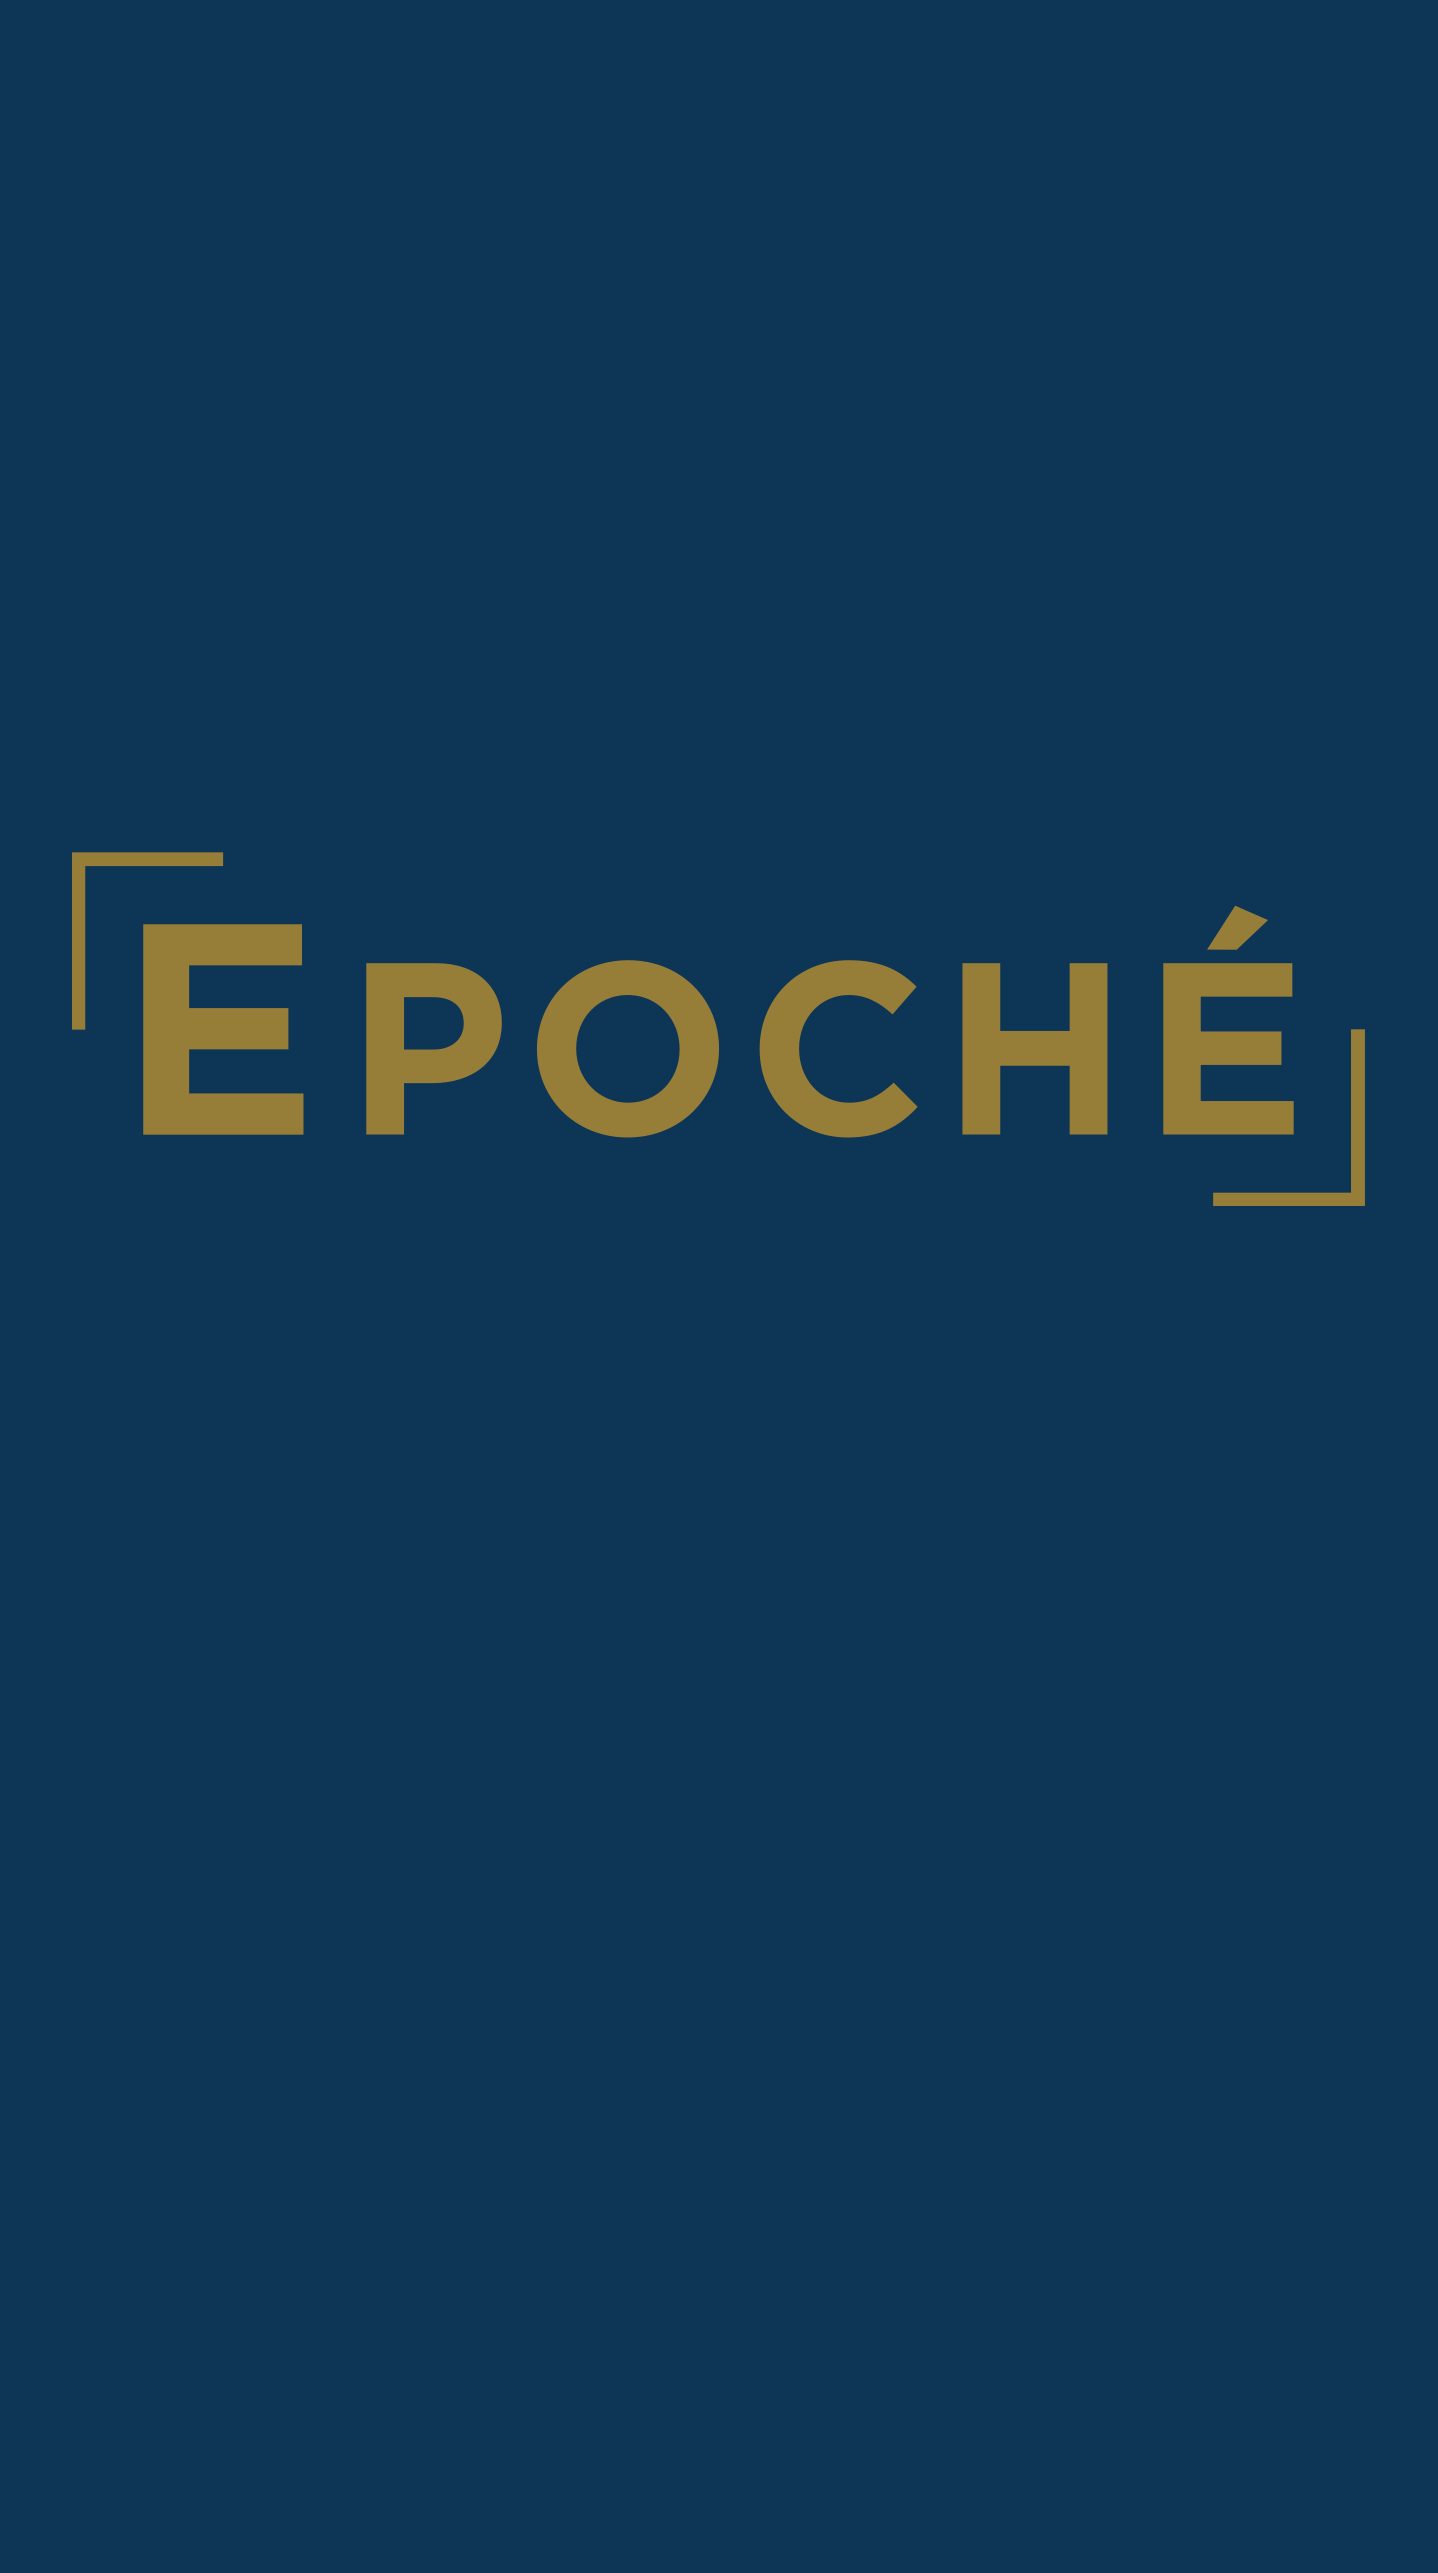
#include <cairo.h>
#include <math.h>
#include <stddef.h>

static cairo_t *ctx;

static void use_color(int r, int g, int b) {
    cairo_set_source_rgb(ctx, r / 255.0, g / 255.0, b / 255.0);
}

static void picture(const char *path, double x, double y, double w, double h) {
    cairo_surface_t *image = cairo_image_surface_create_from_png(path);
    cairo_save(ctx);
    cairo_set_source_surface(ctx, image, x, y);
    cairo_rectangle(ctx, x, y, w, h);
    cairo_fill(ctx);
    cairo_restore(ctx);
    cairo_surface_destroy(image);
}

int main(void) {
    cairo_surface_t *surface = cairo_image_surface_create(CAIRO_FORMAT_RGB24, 1438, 2573);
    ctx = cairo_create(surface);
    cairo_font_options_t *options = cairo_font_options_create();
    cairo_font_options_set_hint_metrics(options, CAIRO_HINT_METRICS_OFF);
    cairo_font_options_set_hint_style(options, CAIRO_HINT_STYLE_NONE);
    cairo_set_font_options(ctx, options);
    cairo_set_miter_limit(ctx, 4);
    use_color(13, 53, 86);
    cairo_paint(ctx);
    picture("img1.png", 72, 852, 1293, 354);
    cairo_surface_write_to_png(surface, "result.png");
    cairo_font_options_destroy(options);
    cairo_destroy(ctx);
    cairo_surface_destroy(surface);
    return 0;
}
